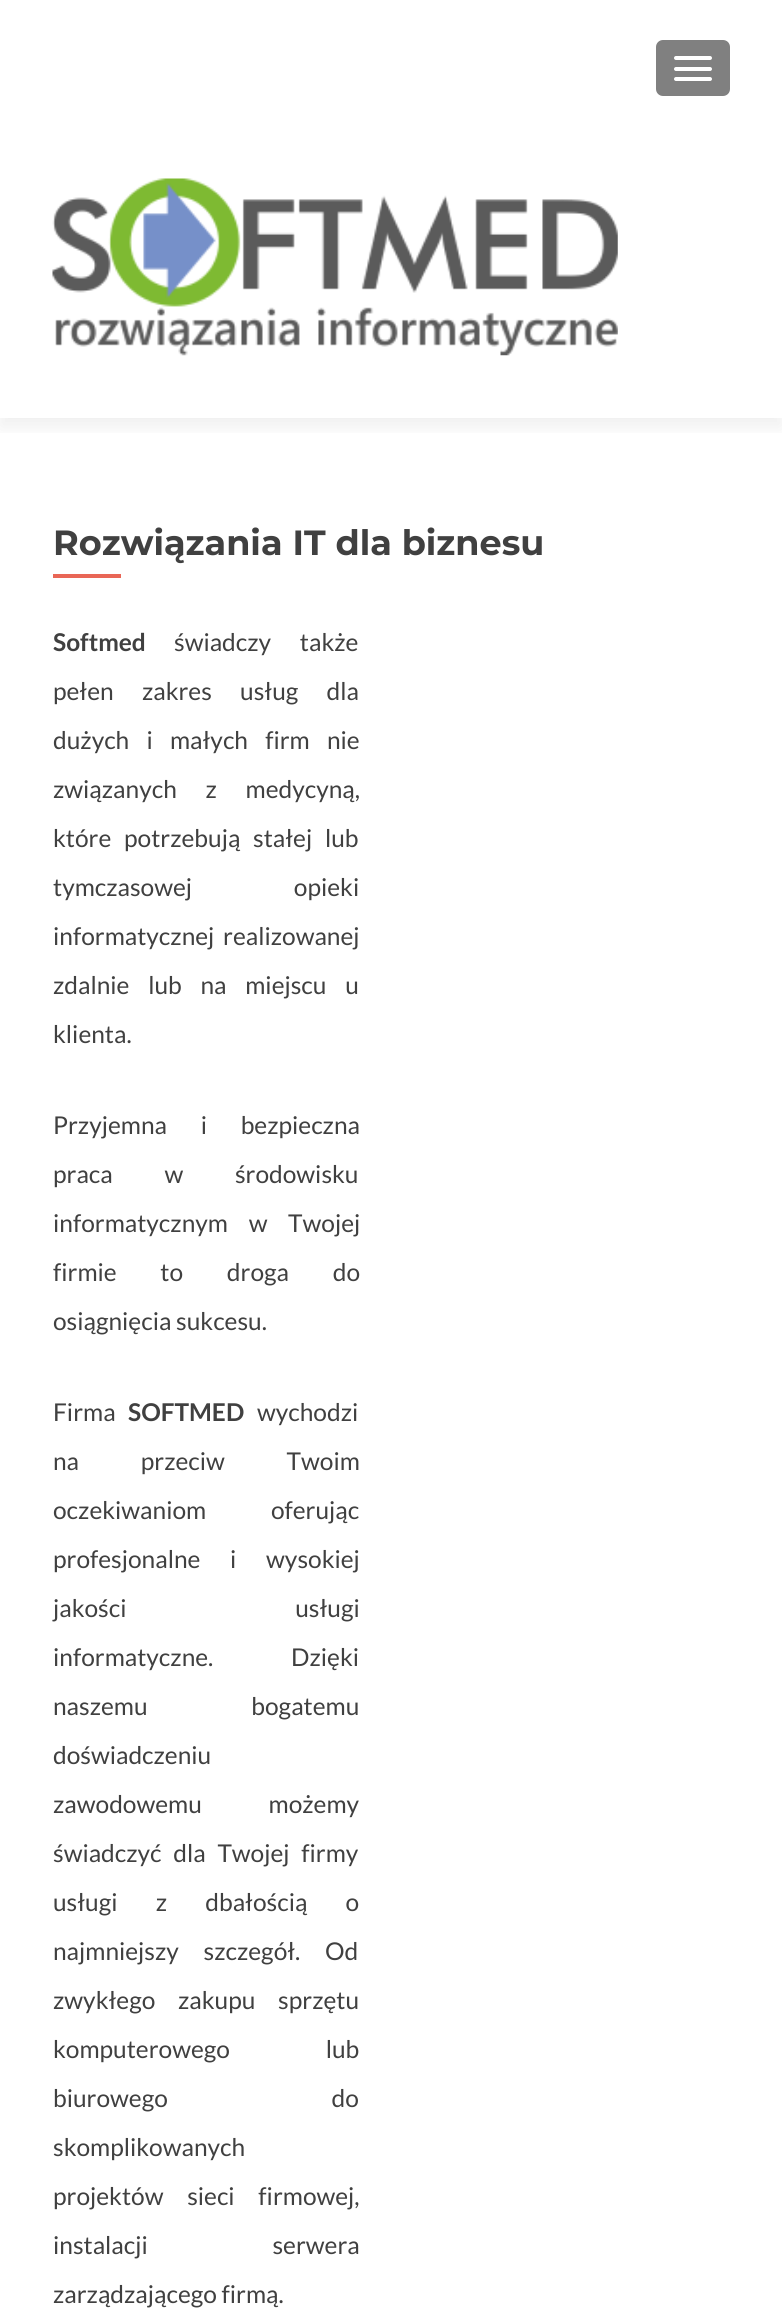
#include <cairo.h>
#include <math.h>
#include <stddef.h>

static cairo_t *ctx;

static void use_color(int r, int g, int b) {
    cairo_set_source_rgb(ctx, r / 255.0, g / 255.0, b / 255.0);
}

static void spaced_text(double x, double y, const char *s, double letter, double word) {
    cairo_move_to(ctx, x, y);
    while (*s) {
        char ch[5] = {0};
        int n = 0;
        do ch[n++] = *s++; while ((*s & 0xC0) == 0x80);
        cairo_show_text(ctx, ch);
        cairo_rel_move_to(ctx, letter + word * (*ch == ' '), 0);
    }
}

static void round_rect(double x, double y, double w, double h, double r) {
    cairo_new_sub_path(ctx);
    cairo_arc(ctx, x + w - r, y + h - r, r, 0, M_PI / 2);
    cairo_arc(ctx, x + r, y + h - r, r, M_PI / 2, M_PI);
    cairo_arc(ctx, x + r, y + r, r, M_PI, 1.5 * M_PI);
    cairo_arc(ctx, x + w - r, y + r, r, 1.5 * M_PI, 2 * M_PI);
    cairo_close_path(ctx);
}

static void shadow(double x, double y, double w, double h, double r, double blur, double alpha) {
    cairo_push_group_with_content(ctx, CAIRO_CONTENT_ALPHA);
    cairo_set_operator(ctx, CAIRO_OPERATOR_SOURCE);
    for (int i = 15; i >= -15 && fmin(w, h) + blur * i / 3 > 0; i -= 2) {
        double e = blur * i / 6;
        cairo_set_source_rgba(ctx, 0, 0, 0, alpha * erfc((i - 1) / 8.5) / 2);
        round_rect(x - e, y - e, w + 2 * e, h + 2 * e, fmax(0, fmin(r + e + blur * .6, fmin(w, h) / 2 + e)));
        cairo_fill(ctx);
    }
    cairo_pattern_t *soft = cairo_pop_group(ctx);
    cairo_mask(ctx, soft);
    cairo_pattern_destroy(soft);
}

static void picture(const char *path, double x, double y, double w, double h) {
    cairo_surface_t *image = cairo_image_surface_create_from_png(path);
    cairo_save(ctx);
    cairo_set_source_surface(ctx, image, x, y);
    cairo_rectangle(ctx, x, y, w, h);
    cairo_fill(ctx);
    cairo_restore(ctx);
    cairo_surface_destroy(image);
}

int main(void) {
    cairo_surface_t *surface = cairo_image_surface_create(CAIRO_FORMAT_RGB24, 782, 2321);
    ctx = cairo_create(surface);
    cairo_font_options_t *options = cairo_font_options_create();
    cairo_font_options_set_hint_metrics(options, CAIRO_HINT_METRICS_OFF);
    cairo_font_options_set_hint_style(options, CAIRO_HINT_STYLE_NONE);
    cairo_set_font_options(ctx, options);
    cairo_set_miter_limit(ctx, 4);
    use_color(255, 255, 255);
    cairo_paint(ctx);
    cairo_save(ctx);
    cairo_rectangle(ctx, 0, 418, 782, 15);
    cairo_clip(ctx);
    use_color(50, 50, 50);
    shadow(0, 9, 782, 418, 0, 9.5, 0.08);
    cairo_restore(ctx);
    use_color(128, 128, 128);
    round_rect(656, 40, 74, 56, 7);
    cairo_fill(ctx);
    use_color(255, 255, 255);
    round_rect(674, 56, 38, 4, 2);
    cairo_fill(ctx);
    round_rect(674, 67, 38, 4, 2);
    cairo_fill(ctx);
    round_rect(674, 77, 38, 4, 2);
    cairo_fill(ctx);
    picture("img1.png", 52, 178, 566, 178);
    cairo_select_font_face(ctx, "Montserrat", CAIRO_FONT_SLANT_NORMAL, CAIRO_FONT_WEIGHT_BOLD);
    cairo_set_font_size(ctx, 35);
    use_color(64, 64, 64);
    cairo_move_to(ctx, 53, 555);
    cairo_show_text(ctx, "Rozwiązania IT dla biznesu");
    use_color(233, 102, 86);
    cairo_rectangle(ctx, 53, 574, 68, 4);
    cairo_fill(ctx);
    cairo_select_font_face(ctx, "Lato", CAIRO_FONT_SLANT_NORMAL, CAIRO_FONT_WEIGHT_BOLD);
    cairo_set_font_size(ctx, 24.5);
    use_color(64, 64, 64);
    cairo_move_to(ctx, 53, 651);
    cairo_show_text(ctx, "Softmed");
    cairo_select_font_face(ctx, "Lato", CAIRO_FONT_SLANT_NORMAL, CAIRO_FONT_WEIGHT_NORMAL);
    spaced_text(174, 651, "świadczy także", 0, 24);
    spaced_text(53, 700, "pełen zakres usług dla", 0, 23.5);
    spaced_text(53, 749, "dużych i małych firm nie", 0, 12.5);
    spaced_text(53, 798, "związanych z medycyną,", 0, 24);
    spaced_text(53, 847, "które potrzebują stałej lub", 0, 8);
    spaced_text(53, 896, "tymczasowej opieki", 0, 97);
    spaced_text(53, 945, "informatycznej realizowanej", 0, 4);
    spaced_text(53, 994, "zdalnie lub na miejscu u", 0, 14);
    cairo_move_to(ctx, 53, 1043);
    cairo_show_text(ctx, "klienta.");
    spaced_text(53, 1134, "Przyjemna i bezpieczna", 0, 29);
    spaced_text(53, 1183, "praca w środowisku", 0, 47);
    spaced_text(53, 1232, "informatycznym w Twojej", 0, 16);
    spaced_text(53, 1281, "firmie to droga do", 0, 39);
    cairo_move_to(ctx, 53, 1330);
    cairo_show_text(ctx, "osiągnięcia sukcesu.");
    cairo_move_to(ctx, 53, 1421);
    cairo_show_text(ctx, "Firma");
    cairo_select_font_face(ctx, "Lato", CAIRO_FONT_SLANT_NORMAL, CAIRO_FONT_WEIGHT_BOLD);
    cairo_move_to(ctx, 128, 1421);
    cairo_show_text(ctx, "SOFTMED");
    cairo_select_font_face(ctx, "Lato", CAIRO_FONT_SLANT_NORMAL, CAIRO_FONT_WEIGHT_NORMAL);
    cairo_move_to(ctx, 257, 1421);
    cairo_show_text(ctx, "wychodzi");
    spaced_text(53, 1470, "na przeciw Twoim", 0, 57);
    spaced_text(53, 1519, "oczekiwaniom oferując", 0, 60);
    spaced_text(53, 1568, "profesjonalne i wysokiej", 0, 25);
    spaced_text(53, 1617, "jakości usługi", 0, 164);
    spaced_text(53, 1666, "informatyczne. Dzięki", 0, 73);
    spaced_text(53, 1715, "naszemu bogatemu", 0, 99);
    cairo_move_to(ctx, 53, 1764);
    cairo_show_text(ctx, "doświadczeniu");
    spaced_text(53, 1813, "zawodowemu możemy", 0, 62);
    spaced_text(53, 1862, "świadczyć dla Twojej firmy", 0, 7);
    spaced_text(53, 1911, "usługi z dbałością o", 0, 33.5);
    spaced_text(53, 1960, "najmniejszy szczegół. Od", 0, 20);
    spaced_text(53, 2009, "zwykłego zakupu sprzętu", 0, 18);
    spaced_text(53, 2058, "komputerowego lub", 0, 91);
    spaced_text(53, 2107, "biurowego do", 0, 159);
    cairo_move_to(ctx, 53, 2156);
    cairo_show_text(ctx, "skomplikowanych");
    spaced_text(53, 2205, "projektów sieci firmowej,", 0, 19);
    spaced_text(53, 2254, "instalacji serwera", 0, 120);
    cairo_move_to(ctx, 53, 2303);
    cairo_show_text(ctx, "zarządzającego firmą.");
    cairo_surface_write_to_png(surface, "result.png");
    cairo_font_options_destroy(options);
    cairo_destroy(ctx);
    cairo_surface_destroy(surface);
    return 0;
}
